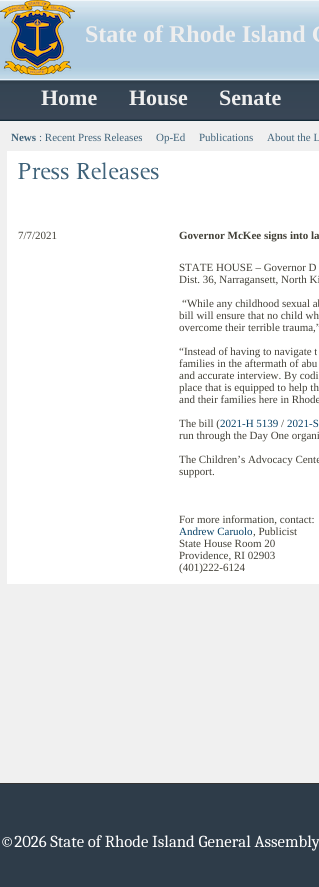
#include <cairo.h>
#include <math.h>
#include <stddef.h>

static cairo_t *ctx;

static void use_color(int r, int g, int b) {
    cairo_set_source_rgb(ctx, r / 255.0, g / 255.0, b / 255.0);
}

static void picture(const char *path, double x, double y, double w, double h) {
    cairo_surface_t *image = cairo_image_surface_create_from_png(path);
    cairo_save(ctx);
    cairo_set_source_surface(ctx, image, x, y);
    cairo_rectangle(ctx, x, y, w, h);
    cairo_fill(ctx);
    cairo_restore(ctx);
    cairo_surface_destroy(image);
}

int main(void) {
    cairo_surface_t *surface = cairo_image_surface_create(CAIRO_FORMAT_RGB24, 319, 887);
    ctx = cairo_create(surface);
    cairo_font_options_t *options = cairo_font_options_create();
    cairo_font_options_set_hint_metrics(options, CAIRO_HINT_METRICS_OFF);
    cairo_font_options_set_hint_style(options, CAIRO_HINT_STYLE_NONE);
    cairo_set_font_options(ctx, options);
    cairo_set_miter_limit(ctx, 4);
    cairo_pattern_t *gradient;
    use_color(240, 240, 240);
    cairo_paint(ctx);
    picture("img1.png", 0, 0, 319, 80);
    picture("img2.png", 0, 0, 75, 75);
    cairo_select_font_face(ctx, "Liberation Serif", CAIRO_FONT_SLANT_NORMAL, CAIRO_FONT_WEIGHT_BOLD);
    cairo_set_font_size(ctx, 24);
    use_color(238, 238, 238);
    cairo_move_to(ctx, 85, 42);
    cairo_show_text(ctx, "State of Rhode Island G");
    gradient = cairo_pattern_create_linear(160, 80, 160, 121);
    cairo_pattern_add_color_stop_rgba(gradient, 0, 0.569, 0.643, 0.702, 1);
    cairo_pattern_add_color_stop_rgba(gradient, 0.03, 0.18, 0.235, 0.286, 1);
    cairo_pattern_add_color_stop_rgba(gradient, 0.12, 0.204, 0.267, 0.325, 1);
    cairo_pattern_add_color_stop_rgba(gradient, 0.95, 0.224, 0.275, 0.337, 1);
    cairo_pattern_add_color_stop_rgba(gradient, 1, 0.027, 0.129, 0.176, 1);
    cairo_set_source(ctx, gradient);
    cairo_pattern_destroy(gradient);
    cairo_rectangle(ctx, 0, 80, 319, 41);
    cairo_fill(ctx);
    cairo_set_font_size(ctx, 22);
    use_color(238, 238, 238);
    cairo_move_to(ctx, 41, 105);
    cairo_show_text(ctx, "Home");
    cairo_move_to(ctx, 129, 105);
    cairo_show_text(ctx, "House");
    cairo_move_to(ctx, 219, 105);
    cairo_show_text(ctx, "Senate");
    cairo_set_font_size(ctx, 11);
    use_color(64, 99, 122);
    cairo_move_to(ctx, 11, 141);
    cairo_show_text(ctx, "News");
    cairo_select_font_face(ctx, "Liberation Serif", CAIRO_FONT_SLANT_NORMAL, CAIRO_FONT_WEIGHT_NORMAL);
    cairo_move_to(ctx, 39, 141);
    cairo_show_text(ctx, ": Recent Press Releases");
    cairo_move_to(ctx, 156, 141);
    cairo_show_text(ctx, "Op-Ed");
    cairo_move_to(ctx, 199, 141);
    cairo_show_text(ctx, "Publications");
    cairo_move_to(ctx, 267, 141);
    cairo_show_text(ctx, "About the L");
    use_color(255, 255, 255);
    cairo_rectangle(ctx, 7, 151, 312, 433);
    cairo_fill(ctx);
    picture("img3.png", 18, 162, 141, 18);
    use_color(66, 64, 55);
    cairo_move_to(ctx, 18, 239);
    cairo_show_text(ctx, "7/7/2021");
    cairo_select_font_face(ctx, "Liberation Serif", CAIRO_FONT_SLANT_NORMAL, CAIRO_FONT_WEIGHT_BOLD);
    cairo_move_to(ctx, 179, 239);
    cairo_show_text(ctx, "Governor McKee signs into la");
    cairo_select_font_face(ctx, "Liberation Serif", CAIRO_FONT_SLANT_NORMAL, CAIRO_FONT_WEIGHT_NORMAL);
    cairo_move_to(ctx, 179, 271);
    cairo_show_text(ctx, "STATE HOUSE – Governor D");
    cairo_move_to(ctx, 179, 283);
    cairo_show_text(ctx, "Dist. 36, Narragansett, North Ki");
    cairo_move_to(ctx, 182, 307);
    cairo_show_text(ctx, "“While any childhood sexual ab");
    cairo_move_to(ctx, 179, 319);
    cairo_show_text(ctx, "bill will ensure that no child wh");
    cairo_move_to(ctx, 179, 331);
    cairo_show_text(ctx, "overcome their terrible trauma,”");
    cairo_move_to(ctx, 179, 355);
    cairo_show_text(ctx, "“Instead of having to navigate t");
    cairo_move_to(ctx, 179, 367);
    cairo_show_text(ctx, "families in the aftermath of abu");
    cairo_move_to(ctx, 179, 379);
    cairo_show_text(ctx, "and accurate interview. By codi");
    cairo_move_to(ctx, 179, 391);
    cairo_show_text(ctx, "place that is equipped to help th");
    cairo_move_to(ctx, 179, 403);
    cairo_show_text(ctx, "and their families here in Rhode");
    cairo_move_to(ctx, 179, 427);
    cairo_show_text(ctx, "The bill (");
    use_color(8, 66, 104);
    cairo_move_to(ctx, 220, 427);
    cairo_show_text(ctx, "2021-H 5139");
    use_color(66, 64, 55);
    cairo_move_to(ctx, 281, 427);
    cairo_show_text(ctx, "/");
    use_color(8, 66, 104);
    cairo_move_to(ctx, 287, 427);
    cairo_show_text(ctx, "2021-S");
    use_color(66, 64, 55);
    cairo_move_to(ctx, 179, 439);
    cairo_show_text(ctx, "run through the Day One organi");
    cairo_move_to(ctx, 179, 463);
    cairo_show_text(ctx, "The Children’s Advocacy Cente");
    cairo_move_to(ctx, 179, 475);
    cairo_show_text(ctx, "support.");
    cairo_move_to(ctx, 179, 523);
    cairo_show_text(ctx, "For more information, contact:");
    use_color(8, 66, 104);
    cairo_move_to(ctx, 179, 535);
    cairo_show_text(ctx, "Andrew Caruolo");
    use_color(66, 64, 55);
    cairo_move_to(ctx, 253, 535);
    cairo_show_text(ctx, ", Publicist");
    cairo_move_to(ctx, 179, 547);
    cairo_show_text(ctx, "State House Room 20");
    cairo_move_to(ctx, 179, 559);
    cairo_show_text(ctx, "Providence, RI 02903");
    cairo_move_to(ctx, 179, 571);
    cairo_show_text(ctx, "(401)222-6124");
    use_color(46, 60, 73);
    cairo_rectangle(ctx, 0, 784, 319, 103);
    cairo_fill(ctx);
    use_color(51, 51, 51);
    cairo_rectangle(ctx, 0, 783, 319, 1);
    cairo_fill(ctx);
    cairo_select_font_face(ctx, "Caladea", CAIRO_FONT_SLANT_NORMAL, CAIRO_FONT_WEIGHT_NORMAL);
    cairo_set_font_size(ctx, 16.75);
    use_color(255, 255, 255);
    cairo_move_to(ctx, 0, 847);
    cairo_show_text(ctx, "©2026 State of Rhode Island General Assembly");
    cairo_surface_write_to_png(surface, "result.png");
    cairo_font_options_destroy(options);
    cairo_destroy(ctx);
    cairo_surface_destroy(surface);
    return 0;
}
